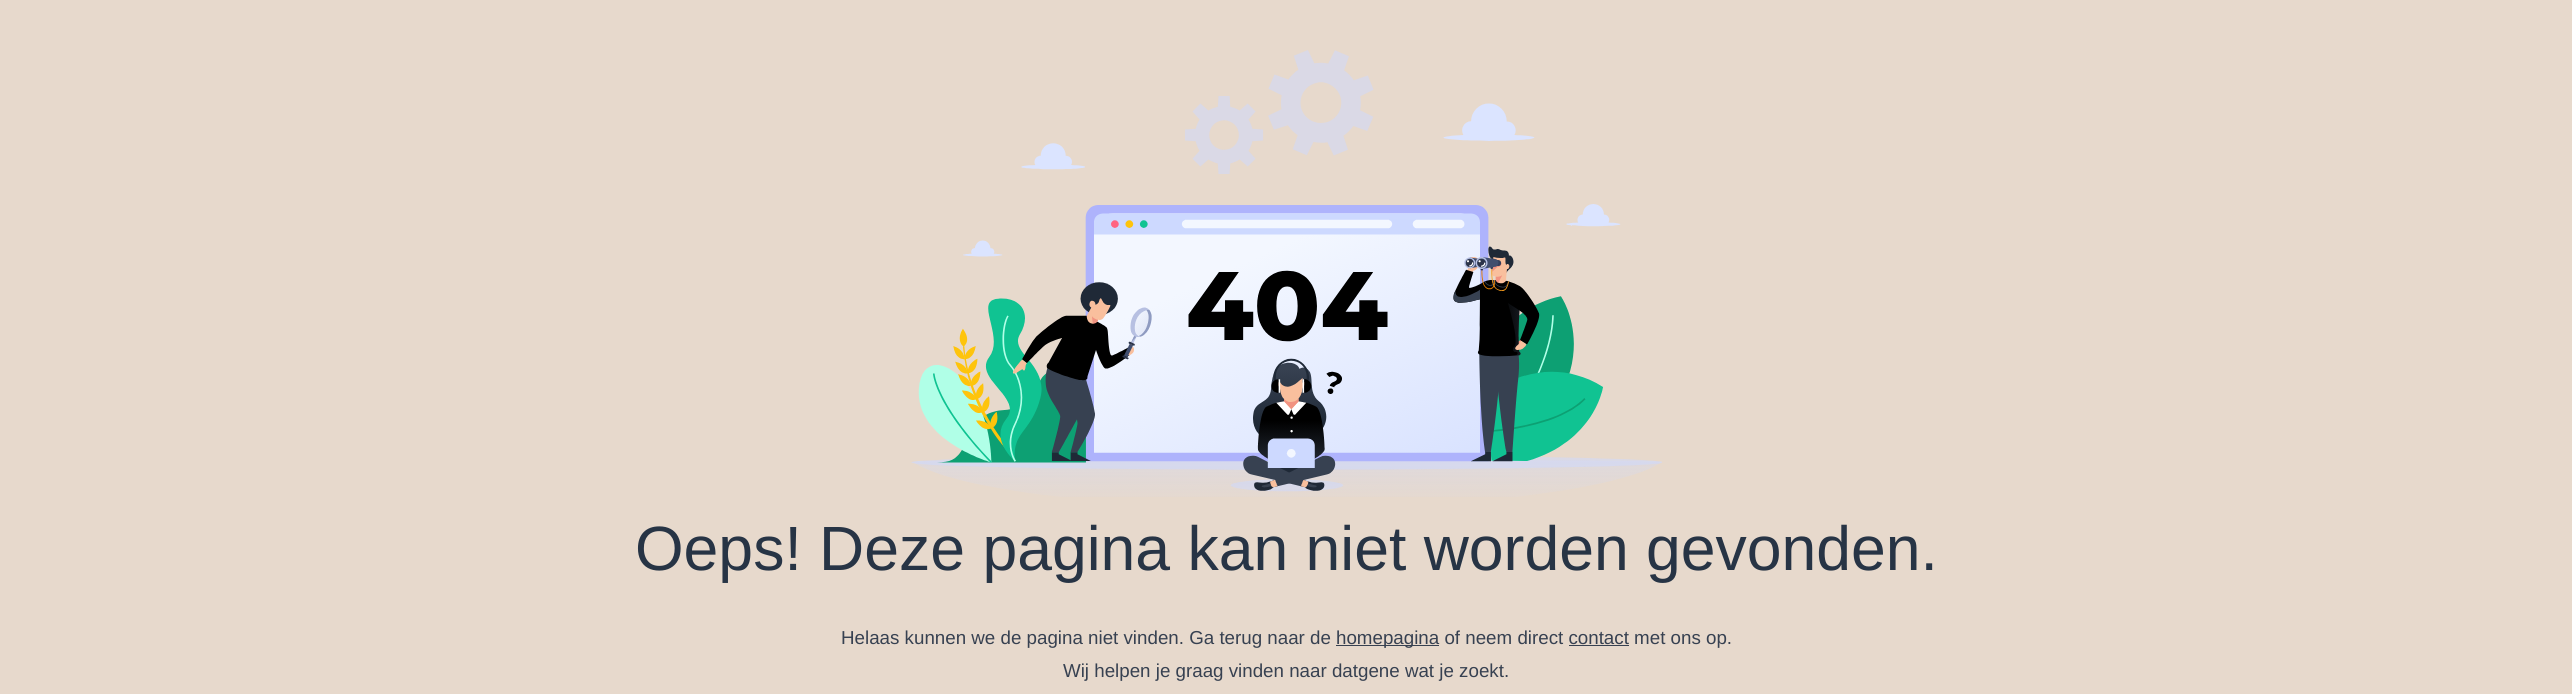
#include <cairo.h>
#include <math.h>
#include <stddef.h>

static cairo_t *ctx;

static void use_color(int r, int g, int b) {
    cairo_set_source_rgb(ctx, r / 255.0, g / 255.0, b / 255.0);
}

static void picture(const char *path, double x, double y, double w, double h) {
    cairo_surface_t *image = cairo_image_surface_create_from_png(path);
    cairo_save(ctx);
    cairo_set_source_surface(ctx, image, x, y);
    cairo_rectangle(ctx, x, y, w, h);
    cairo_fill(ctx);
    cairo_restore(ctx);
    cairo_surface_destroy(image);
}

int main(void) {
    cairo_surface_t *surface = cairo_image_surface_create(CAIRO_FORMAT_RGB24, 2572, 694);
    ctx = cairo_create(surface);
    cairo_font_options_t *options = cairo_font_options_create();
    cairo_font_options_set_hint_metrics(options, CAIRO_HINT_METRICS_OFF);
    cairo_font_options_set_hint_style(options, CAIRO_HINT_STYLE_NONE);
    cairo_set_font_options(ctx, options);
    cairo_set_miter_limit(ctx, 4);
    use_color(231, 217, 204);
    cairo_paint(ctx);
    picture("img1.png", 911, 50, 751, 447);
    cairo_select_font_face(ctx, "Liberation Sans", CAIRO_FONT_SLANT_NORMAL, CAIRO_FONT_WEIGHT_NORMAL);
    cairo_set_font_size(ctx, 62.5);
    use_color(39, 52, 69);
    cairo_move_to(ctx, 635, 570);
    cairo_show_text(ctx, "Oeps! Deze pagina kan niet worden gevonden.");
    cairo_set_font_size(ctx, 18.75);
    use_color(55, 65, 81);
    cairo_move_to(ctx, 841, 644);
    cairo_show_text(ctx, "Helaas kunnen we de pagina niet vinden. Ga terug naar de");
    cairo_rectangle(ctx, 1336, 645, 103, 1);
    cairo_fill(ctx);
    cairo_move_to(ctx, 1336, 644);
    cairo_show_text(ctx, "homepagina of neem direct contact met ons op.");
    cairo_rectangle(ctx, 1569, 645, 60, 1);
    cairo_fill(ctx);
    cairo_move_to(ctx, 1063, 677);
    cairo_show_text(ctx, "Wij helpen je graag vinden naar datgene wat je zoekt.");
    cairo_surface_write_to_png(surface, "result.png");
    cairo_font_options_destroy(options);
    cairo_destroy(ctx);
    cairo_surface_destroy(surface);
    return 0;
}
